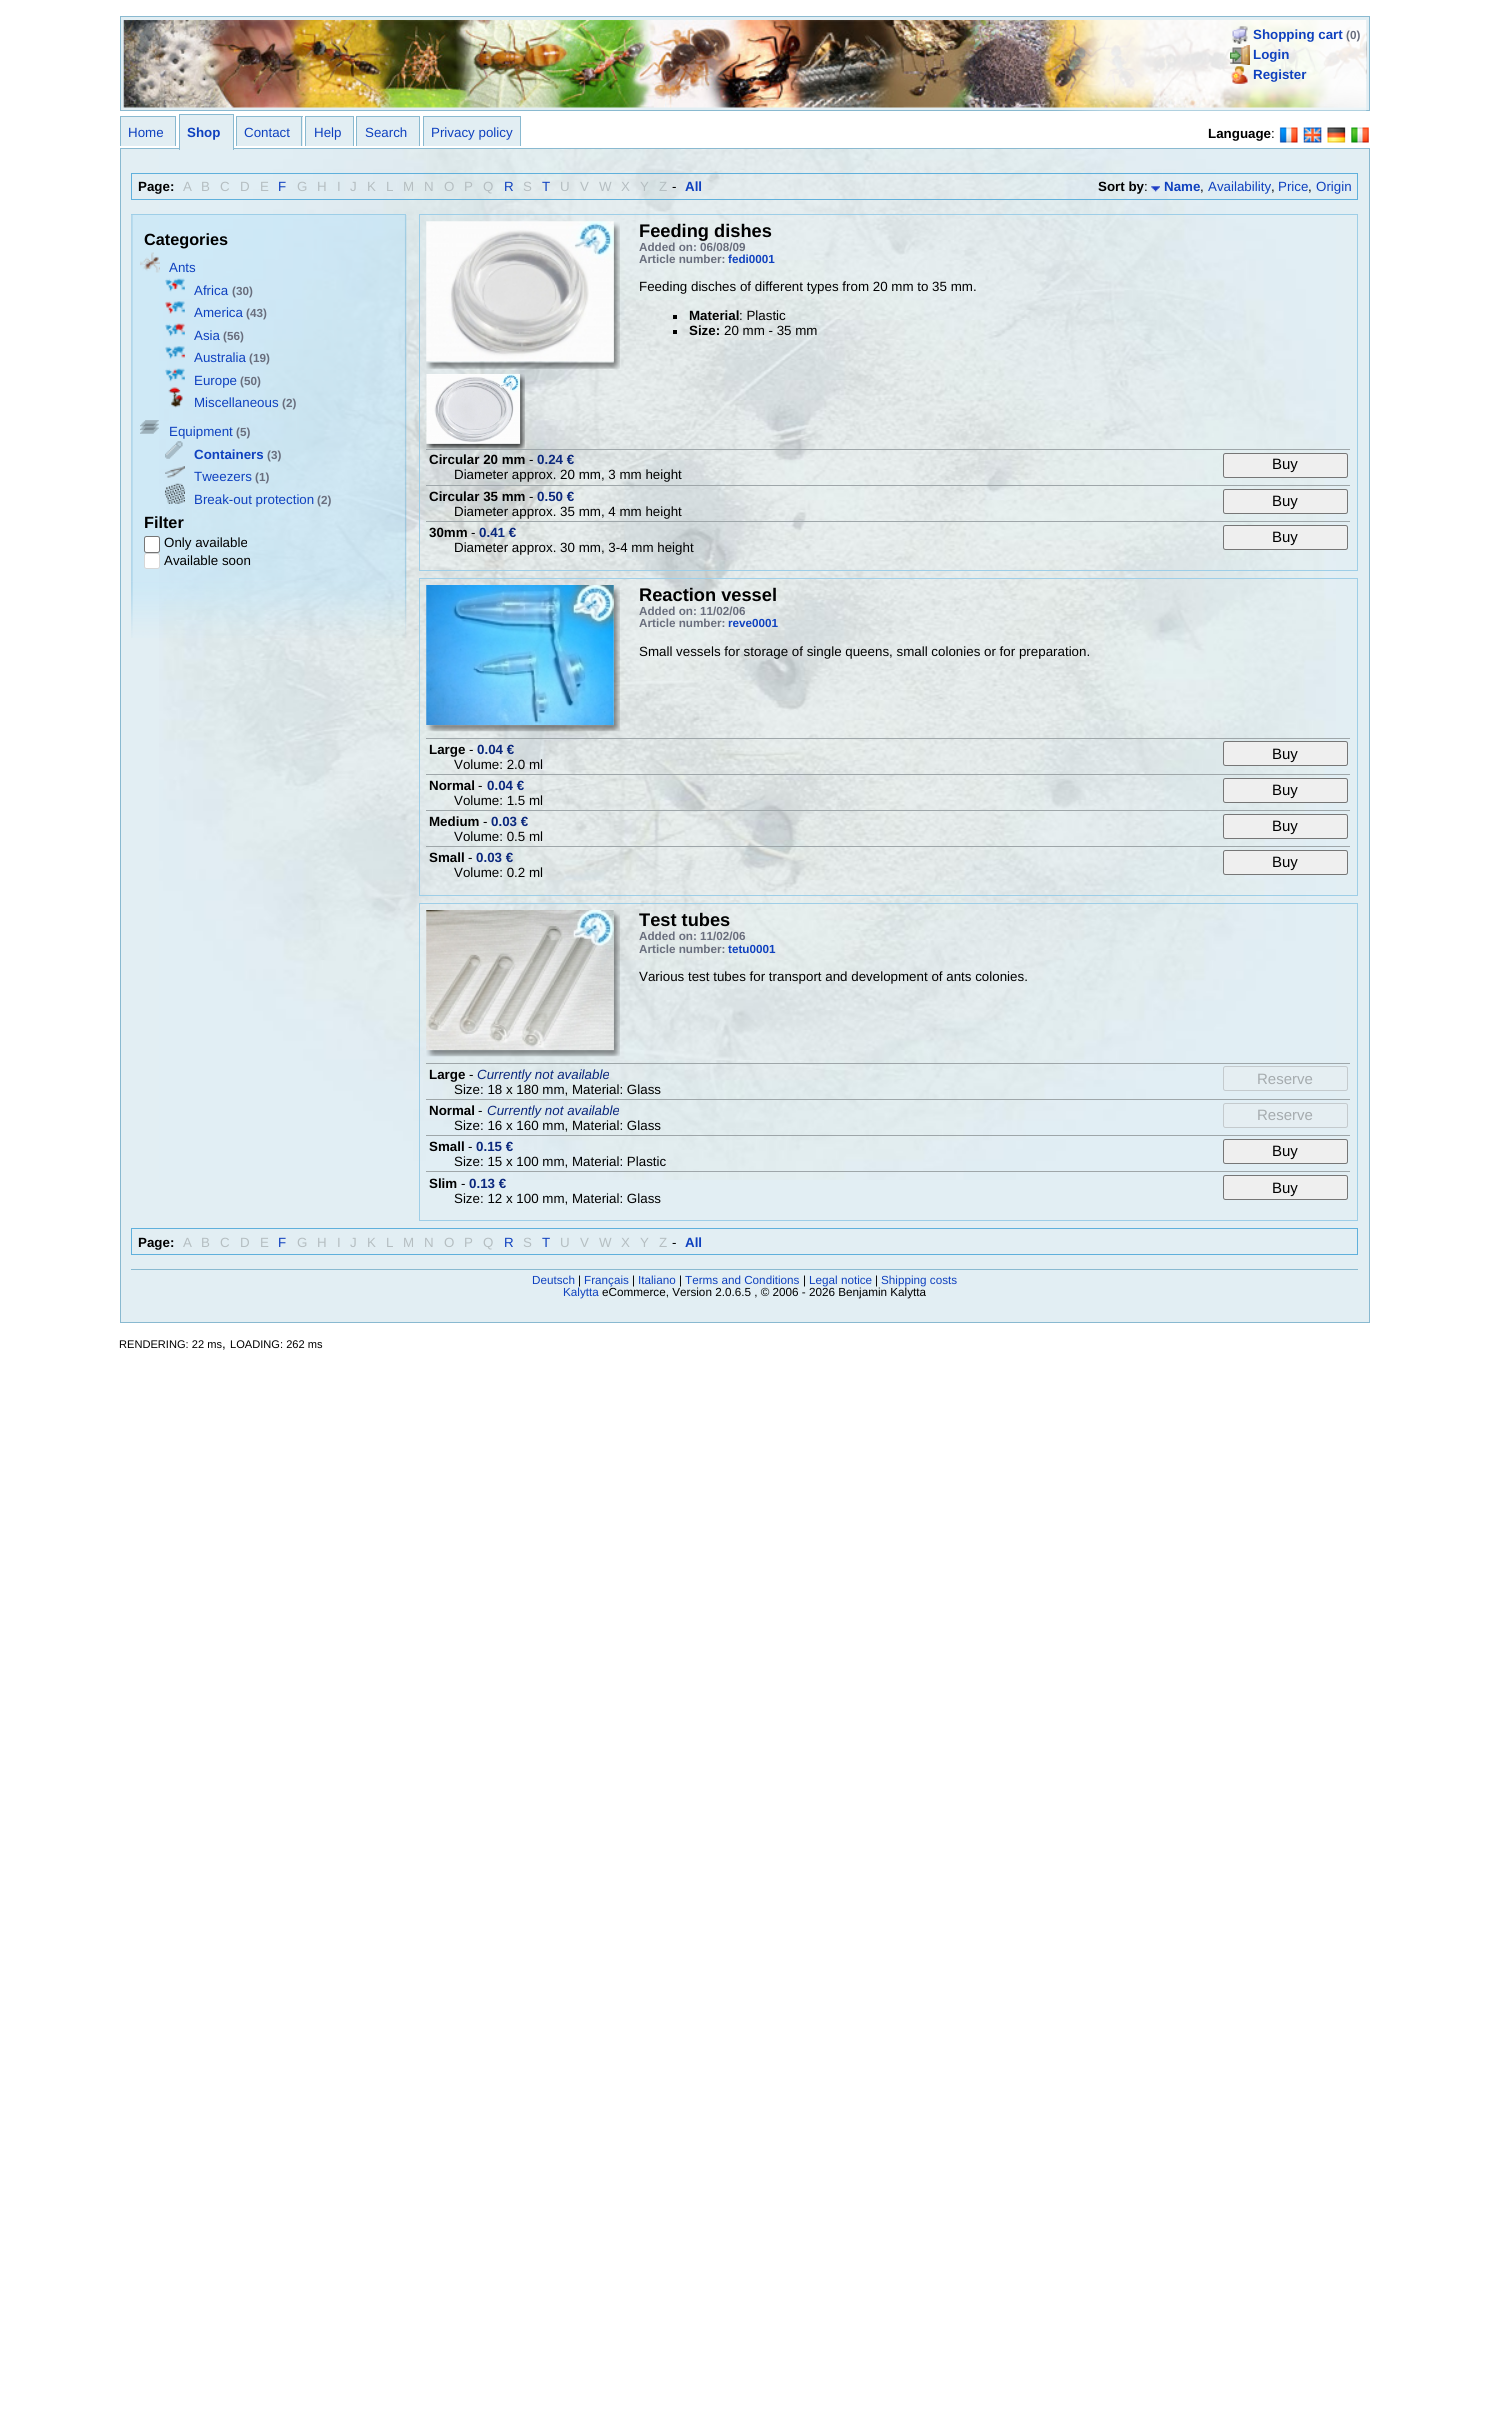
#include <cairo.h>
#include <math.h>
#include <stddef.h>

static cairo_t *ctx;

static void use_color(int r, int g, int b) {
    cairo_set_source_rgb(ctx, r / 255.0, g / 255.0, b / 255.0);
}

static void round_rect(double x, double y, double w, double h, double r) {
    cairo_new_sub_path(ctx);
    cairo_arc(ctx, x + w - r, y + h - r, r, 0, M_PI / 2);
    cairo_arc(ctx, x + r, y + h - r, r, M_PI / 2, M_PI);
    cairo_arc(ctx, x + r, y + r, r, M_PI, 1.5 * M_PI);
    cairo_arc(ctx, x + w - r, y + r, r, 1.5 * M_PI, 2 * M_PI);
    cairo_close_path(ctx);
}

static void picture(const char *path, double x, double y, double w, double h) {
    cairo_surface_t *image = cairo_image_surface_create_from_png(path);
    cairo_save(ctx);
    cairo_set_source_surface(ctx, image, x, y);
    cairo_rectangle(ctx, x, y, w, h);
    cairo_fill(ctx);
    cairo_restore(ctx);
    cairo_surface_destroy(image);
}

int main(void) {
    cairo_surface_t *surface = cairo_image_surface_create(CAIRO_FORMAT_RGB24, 1488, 2420);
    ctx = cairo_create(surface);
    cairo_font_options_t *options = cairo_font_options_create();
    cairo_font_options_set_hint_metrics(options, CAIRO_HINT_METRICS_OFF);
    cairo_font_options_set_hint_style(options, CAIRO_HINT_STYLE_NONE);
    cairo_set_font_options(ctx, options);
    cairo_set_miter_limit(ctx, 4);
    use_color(255, 255, 255);
    cairo_paint(ctx);
    use_color(226, 238, 243);
    cairo_rectangle(ctx, 120.5, 16.5, 1249, 94);
    cairo_fill_preserve(ctx);
    use_color(137, 185, 208);
    cairo_set_line_width(ctx, 1);
    cairo_stroke(ctx);
    picture("img1.png", 123, 20, 1244, 88);
    picture("img2.png", 1053, 20, 314, 91);
    picture("img3.png", 1232, 26, 16, 18);
    cairo_select_font_face(ctx, "Liberation Sans", CAIRO_FONT_SLANT_NORMAL, CAIRO_FONT_WEIGHT_BOLD);
    cairo_set_font_size(ctx, 13.35);
    use_color(15, 65, 191);
    cairo_move_to(ctx, 1253, 39);
    cairo_show_text(ctx, "Shopping cart");
    cairo_set_font_size(ctx, 11.7);
    use_color(105, 110, 125);
    cairo_move_to(ctx, 1346, 39);
    cairo_show_text(ctx, "(0)");
    picture("img4.png", 1230, 45, 20, 20);
    cairo_set_font_size(ctx, 13.35);
    use_color(15, 65, 191);
    cairo_move_to(ctx, 1253, 59);
    cairo_show_text(ctx, "Login");
    picture("img5.png", 1231, 66, 17, 18);
    cairo_move_to(ctx, 1253, 79);
    cairo_show_text(ctx, "Register");
    use_color(226, 238, 243);
    cairo_rectangle(ctx, 121, 117, 54, 29);
    cairo_fill(ctx);
    cairo_select_font_face(ctx, "Liberation Sans", CAIRO_FONT_SLANT_NORMAL, CAIRO_FONT_WEIGHT_NORMAL);
    use_color(15, 65, 191);
    cairo_move_to(ctx, 128, 137);
    cairo_show_text(ctx, "Home");
    use_color(137, 185, 208);
    cairo_rectangle(ctx, 120, 116, 56, 1);
    cairo_fill(ctx);
    cairo_rectangle(ctx, 120, 116, 1, 30);
    cairo_fill(ctx);
    cairo_rectangle(ctx, 175, 116, 1, 30);
    cairo_fill(ctx);
    use_color(226, 238, 243);
    cairo_rectangle(ctx, 121, 149, 1248, 1173);
    cairo_fill(ctx);
    picture("img10.png", 159, 149, 1177, 1031);
    cairo_rectangle(ctx, 120.5, 148.5, 1249, 1174);
    use_color(137, 185, 208);
    cairo_stroke(ctx);
    use_color(226, 238, 243);
    cairo_rectangle(ctx, 180, 115, 53, 34);
    cairo_fill(ctx);
    cairo_select_font_face(ctx, "Liberation Sans", CAIRO_FONT_SLANT_NORMAL, CAIRO_FONT_WEIGHT_BOLD);
    use_color(15, 65, 191);
    cairo_move_to(ctx, 187, 137);
    cairo_show_text(ctx, "Shop");
    use_color(137, 185, 208);
    cairo_rectangle(ctx, 179, 114, 55, 1);
    cairo_fill(ctx);
    cairo_rectangle(ctx, 179, 114, 1, 36);
    cairo_fill(ctx);
    use_color(226, 238, 243);
    cairo_rectangle(ctx, 237, 117, 66, 29);
    cairo_fill(ctx);
    cairo_select_font_face(ctx, "Liberation Sans", CAIRO_FONT_SLANT_NORMAL, CAIRO_FONT_WEIGHT_NORMAL);
    use_color(15, 65, 191);
    cairo_move_to(ctx, 244, 137);
    cairo_show_text(ctx, "Contact");
    use_color(137, 185, 208);
    cairo_rectangle(ctx, 233, 114, 1, 36);
    cairo_fill(ctx);
    cairo_rectangle(ctx, 236, 116, 67, 1);
    cairo_fill(ctx);
    cairo_rectangle(ctx, 236, 116, 1, 30);
    cairo_fill(ctx);
    cairo_rectangle(ctx, 301, 116, 1, 30);
    cairo_fill(ctx);
    use_color(226, 238, 243);
    cairo_rectangle(ctx, 306, 117, 47, 29);
    cairo_fill(ctx);
    use_color(15, 65, 191);
    cairo_move_to(ctx, 314, 137);
    cairo_show_text(ctx, "Help");
    use_color(137, 185, 208);
    cairo_rectangle(ctx, 305, 116, 49, 1);
    cairo_fill(ctx);
    cairo_rectangle(ctx, 305, 116, 1, 30);
    cairo_fill(ctx);
    use_color(226, 238, 243);
    cairo_rectangle(ctx, 357, 117, 62, 29);
    cairo_fill(ctx);
    use_color(15, 65, 191);
    cairo_move_to(ctx, 365, 137);
    cairo_show_text(ctx, "Search");
    use_color(137, 185, 208);
    cairo_rectangle(ctx, 353, 116, 1, 30);
    cairo_fill(ctx);
    cairo_rectangle(ctx, 356, 116, 64, 1);
    cairo_fill(ctx);
    cairo_rectangle(ctx, 356, 116, 1, 30);
    cairo_fill(ctx);
    cairo_rectangle(ctx, 419, 116, 1, 30);
    cairo_fill(ctx);
    use_color(226, 238, 243);
    cairo_rectangle(ctx, 424, 117, 96, 29);
    cairo_fill(ctx);
    use_color(15, 65, 191);
    cairo_move_to(ctx, 431, 137);
    cairo_show_text(ctx, "Privacy policy");
    use_color(137, 185, 208);
    cairo_rectangle(ctx, 423, 116, 98, 1);
    cairo_fill(ctx);
    cairo_rectangle(ctx, 520, 116, 1, 30);
    cairo_fill(ctx);
    cairo_rectangle(ctx, 423, 116, 1, 30);
    cairo_fill(ctx);
    cairo_select_font_face(ctx, "Liberation Sans", CAIRO_FONT_SLANT_NORMAL, CAIRO_FONT_WEIGHT_BOLD);
    use_color(0, 0, 0);
    cairo_move_to(ctx, 1208, 138);
    cairo_show_text(ctx, "Language");
    cairo_select_font_face(ctx, "Liberation Sans", CAIRO_FONT_SLANT_NORMAL, CAIRO_FONT_WEIGHT_NORMAL);
    cairo_move_to(ctx, 1271, 138);
    cairo_show_text(ctx, ":");
    picture("img6.png", 1279, 127, 19, 16);
    picture("img7.png", 1303, 127, 19, 16);
    picture("img8.png", 1327, 127, 19, 16);
    picture("img9.png", 1351, 127, 18, 16);
    cairo_rectangle(ctx, 131.5, 173.5, 1226, 26);
    use_color(95, 176, 220);
    cairo_stroke(ctx);
    cairo_select_font_face(ctx, "Liberation Sans", CAIRO_FONT_SLANT_NORMAL, CAIRO_FONT_WEIGHT_BOLD);
    use_color(0, 0, 0);
    cairo_move_to(ctx, 138, 191);
    cairo_show_text(ctx, "Page:");
    cairo_select_font_face(ctx, "Liberation Sans", CAIRO_FONT_SLANT_NORMAL, CAIRO_FONT_WEIGHT_NORMAL);
    use_color(181, 190, 193);
    cairo_move_to(ctx, 183, 191);
    cairo_show_text(ctx, "A");
    cairo_move_to(ctx, 201, 191);
    cairo_show_text(ctx, "B");
    cairo_move_to(ctx, 220, 191);
    cairo_show_text(ctx, "C");
    cairo_move_to(ctx, 240, 191);
    cairo_show_text(ctx, "D");
    cairo_move_to(ctx, 260, 191);
    cairo_show_text(ctx, "E");
    use_color(15, 65, 191);
    cairo_move_to(ctx, 278, 191);
    cairo_show_text(ctx, "F");
    use_color(181, 190, 193);
    cairo_move_to(ctx, 297, 191);
    cairo_show_text(ctx, "G");
    cairo_move_to(ctx, 317, 191);
    cairo_show_text(ctx, "H");
    cairo_move_to(ctx, 337, 191);
    cairo_show_text(ctx, "I");
    cairo_move_to(ctx, 350, 191);
    cairo_show_text(ctx, "J");
    cairo_move_to(ctx, 367, 191);
    cairo_show_text(ctx, "K");
    cairo_move_to(ctx, 386, 191);
    cairo_show_text(ctx, "L");
    cairo_move_to(ctx, 403, 191);
    cairo_show_text(ctx, "M");
    cairo_move_to(ctx, 424, 191);
    cairo_show_text(ctx, "N");
    cairo_move_to(ctx, 444, 191);
    cairo_show_text(ctx, "O");
    cairo_move_to(ctx, 464, 191);
    cairo_show_text(ctx, "P");
    cairo_move_to(ctx, 483, 191);
    cairo_show_text(ctx, "Q");
    use_color(15, 65, 191);
    cairo_move_to(ctx, 504, 191);
    cairo_show_text(ctx, "R");
    use_color(181, 190, 193);
    cairo_move_to(ctx, 523, 191);
    cairo_show_text(ctx, "S");
    use_color(15, 65, 191);
    cairo_move_to(ctx, 542, 191);
    cairo_show_text(ctx, "T");
    use_color(181, 190, 193);
    cairo_move_to(ctx, 560, 191);
    cairo_show_text(ctx, "U");
    cairo_move_to(ctx, 580, 191);
    cairo_show_text(ctx, "V");
    cairo_move_to(ctx, 599, 191);
    cairo_show_text(ctx, "W");
    cairo_move_to(ctx, 621, 191);
    cairo_show_text(ctx, "X");
    cairo_move_to(ctx, 640, 191);
    cairo_show_text(ctx, "Y");
    cairo_move_to(ctx, 659, 191);
    cairo_show_text(ctx, "Z");
    use_color(0, 0, 0);
    cairo_move_to(ctx, 672, 191);
    cairo_show_text(ctx, "-");
    cairo_select_font_face(ctx, "Liberation Sans", CAIRO_FONT_SLANT_NORMAL, CAIRO_FONT_WEIGHT_BOLD);
    use_color(15, 65, 191);
    cairo_move_to(ctx, 685, 191);
    cairo_show_text(ctx, "All");
    use_color(0, 0, 0);
    cairo_move_to(ctx, 1098, 191);
    cairo_show_text(ctx, "Sort by");
    cairo_select_font_face(ctx, "Liberation Sans", CAIRO_FONT_SLANT_NORMAL, CAIRO_FONT_WEIGHT_NORMAL);
    cairo_move_to(ctx, 1144, 191);
    cairo_show_text(ctx, ":");
    picture("img11.png", 1151, 186, 9, 6);
    cairo_select_font_face(ctx, "Liberation Sans", CAIRO_FONT_SLANT_NORMAL, CAIRO_FONT_WEIGHT_BOLD);
    use_color(15, 65, 191);
    cairo_move_to(ctx, 1164, 191);
    cairo_show_text(ctx, "Name");
    cairo_select_font_face(ctx, "Liberation Sans", CAIRO_FONT_SLANT_NORMAL, CAIRO_FONT_WEIGHT_NORMAL);
    use_color(0, 0, 0);
    cairo_move_to(ctx, 1200, 191);
    cairo_show_text(ctx, ",");
    use_color(15, 65, 191);
    cairo_move_to(ctx, 1208, 191);
    cairo_show_text(ctx, "Availability");
    use_color(0, 0, 0);
    cairo_move_to(ctx, 1271, 191);
    cairo_show_text(ctx, ",");
    use_color(15, 65, 191);
    cairo_move_to(ctx, 1278, 191);
    cairo_show_text(ctx, "Price");
    use_color(0, 0, 0);
    cairo_move_to(ctx, 1308, 191);
    cairo_show_text(ctx, ",");
    use_color(15, 65, 191);
    cairo_move_to(ctx, 1316, 191);
    cairo_show_text(ctx, "Origin");
    use_color(158, 206, 231);
    cairo_rectangle(ctx, 131, 214, 275, 1);
    cairo_fill(ctx);
    picture("img12.png", 131, 215, 276, 367);
    cairo_select_font_face(ctx, "Liberation Sans", CAIRO_FONT_SLANT_NORMAL, CAIRO_FONT_WEIGHT_BOLD);
    cairo_set_font_size(ctx, 16.25);
    use_color(0, 0, 0);
    cairo_move_to(ctx, 144, 245);
    cairo_show_text(ctx, "Categories");
    picture("img13.png", 140, 252, 20, 21);
    cairo_select_font_face(ctx, "Liberation Sans", CAIRO_FONT_SLANT_NORMAL, CAIRO_FONT_WEIGHT_NORMAL);
    cairo_set_font_size(ctx, 13.35);
    use_color(15, 65, 191);
    cairo_move_to(ctx, 169, 272);
    cairo_show_text(ctx, "Ants");
    picture("img14.png", 165, 278, 20, 14);
    cairo_move_to(ctx, 194, 295);
    cairo_show_text(ctx, "Africa");
    cairo_select_font_face(ctx, "Liberation Sans", CAIRO_FONT_SLANT_NORMAL, CAIRO_FONT_WEIGHT_BOLD);
    cairo_set_font_size(ctx, 11.7);
    use_color(105, 110, 125);
    cairo_move_to(ctx, 232, 295);
    cairo_show_text(ctx, "(30)");
    picture("img15.png", 165, 301, 20, 13);
    cairo_select_font_face(ctx, "Liberation Sans", CAIRO_FONT_SLANT_NORMAL, CAIRO_FONT_WEIGHT_NORMAL);
    cairo_set_font_size(ctx, 13.35);
    use_color(15, 65, 191);
    cairo_move_to(ctx, 194, 317);
    cairo_show_text(ctx, "America");
    cairo_select_font_face(ctx, "Liberation Sans", CAIRO_FONT_SLANT_NORMAL, CAIRO_FONT_WEIGHT_BOLD);
    cairo_set_font_size(ctx, 11.7);
    use_color(105, 110, 125);
    cairo_move_to(ctx, 246, 317);
    cairo_show_text(ctx, "(43)");
    picture("img16.png", 165, 323, 20, 14);
    cairo_select_font_face(ctx, "Liberation Sans", CAIRO_FONT_SLANT_NORMAL, CAIRO_FONT_WEIGHT_NORMAL);
    cairo_set_font_size(ctx, 13.35);
    use_color(15, 65, 191);
    cairo_move_to(ctx, 194, 340);
    cairo_show_text(ctx, "Asia");
    cairo_select_font_face(ctx, "Liberation Sans", CAIRO_FONT_SLANT_NORMAL, CAIRO_FONT_WEIGHT_BOLD);
    cairo_set_font_size(ctx, 11.7);
    use_color(105, 110, 125);
    cairo_move_to(ctx, 223, 340);
    cairo_show_text(ctx, "(56)");
    picture("img17.png", 165, 346, 20, 13);
    cairo_select_font_face(ctx, "Liberation Sans", CAIRO_FONT_SLANT_NORMAL, CAIRO_FONT_WEIGHT_NORMAL);
    cairo_set_font_size(ctx, 13.35);
    use_color(15, 65, 191);
    cairo_move_to(ctx, 194, 362);
    cairo_show_text(ctx, "Australia");
    cairo_select_font_face(ctx, "Liberation Sans", CAIRO_FONT_SLANT_NORMAL, CAIRO_FONT_WEIGHT_BOLD);
    cairo_set_font_size(ctx, 11.7);
    use_color(105, 110, 125);
    cairo_move_to(ctx, 249, 362);
    cairo_show_text(ctx, "(19)");
    picture("img18.png", 165, 368, 20, 14);
    cairo_select_font_face(ctx, "Liberation Sans", CAIRO_FONT_SLANT_NORMAL, CAIRO_FONT_WEIGHT_NORMAL);
    cairo_set_font_size(ctx, 13.35);
    use_color(15, 65, 191);
    cairo_move_to(ctx, 194, 385);
    cairo_show_text(ctx, "Europe");
    cairo_select_font_face(ctx, "Liberation Sans", CAIRO_FONT_SLANT_NORMAL, CAIRO_FONT_WEIGHT_BOLD);
    cairo_set_font_size(ctx, 11.7);
    use_color(105, 110, 125);
    cairo_move_to(ctx, 240, 385);
    cairo_show_text(ctx, "(50)");
    picture("img19.png", 168, 387, 15, 21);
    cairo_select_font_face(ctx, "Liberation Sans", CAIRO_FONT_SLANT_NORMAL, CAIRO_FONT_WEIGHT_NORMAL);
    cairo_set_font_size(ctx, 13.35);
    use_color(15, 65, 191);
    cairo_move_to(ctx, 194, 407);
    cairo_show_text(ctx, "Miscellaneous");
    cairo_select_font_face(ctx, "Liberation Sans", CAIRO_FONT_SLANT_NORMAL, CAIRO_FONT_WEIGHT_BOLD);
    cairo_set_font_size(ctx, 11.7);
    use_color(105, 110, 125);
    cairo_move_to(ctx, 282, 407);
    cairo_show_text(ctx, "(2)");
    picture("img20.png", 140, 420, 19, 14);
    cairo_select_font_face(ctx, "Liberation Sans", CAIRO_FONT_SLANT_NORMAL, CAIRO_FONT_WEIGHT_NORMAL);
    cairo_set_font_size(ctx, 13.35);
    use_color(15, 65, 191);
    cairo_move_to(ctx, 169, 436);
    cairo_show_text(ctx, "Equipment");
    cairo_select_font_face(ctx, "Liberation Sans", CAIRO_FONT_SLANT_NORMAL, CAIRO_FONT_WEIGHT_BOLD);
    cairo_set_font_size(ctx, 11.7);
    use_color(105, 110, 125);
    cairo_move_to(ctx, 236, 436);
    cairo_show_text(ctx, "(5)");
    picture("img21.png", 165, 441, 18, 18);
    cairo_set_font_size(ctx, 13.35);
    use_color(15, 65, 191);
    cairo_move_to(ctx, 194, 459);
    cairo_show_text(ctx, "Containers");
    cairo_set_font_size(ctx, 11.7);
    use_color(105, 110, 125);
    cairo_move_to(ctx, 267, 459);
    cairo_show_text(ctx, "(3)");
    picture("img22.png", 165, 466, 20, 12);
    cairo_select_font_face(ctx, "Liberation Sans", CAIRO_FONT_SLANT_NORMAL, CAIRO_FONT_WEIGHT_NORMAL);
    cairo_set_font_size(ctx, 13.35);
    use_color(15, 65, 191);
    cairo_move_to(ctx, 194, 481);
    cairo_show_text(ctx, "Tweezers");
    cairo_select_font_face(ctx, "Liberation Sans", CAIRO_FONT_SLANT_NORMAL, CAIRO_FONT_WEIGHT_BOLD);
    cairo_set_font_size(ctx, 11.7);
    use_color(105, 110, 125);
    cairo_move_to(ctx, 255, 481);
    cairo_show_text(ctx, "(1)");
    picture("img23.png", 165, 483, 20, 21);
    cairo_select_font_face(ctx, "Liberation Sans", CAIRO_FONT_SLANT_NORMAL, CAIRO_FONT_WEIGHT_NORMAL);
    cairo_set_font_size(ctx, 13.35);
    use_color(15, 65, 191);
    cairo_move_to(ctx, 194, 504);
    cairo_show_text(ctx, "Break-out protection");
    cairo_select_font_face(ctx, "Liberation Sans", CAIRO_FONT_SLANT_NORMAL, CAIRO_FONT_WEIGHT_BOLD);
    cairo_set_font_size(ctx, 11.7);
    use_color(105, 110, 125);
    cairo_move_to(ctx, 317, 504);
    cairo_show_text(ctx, "(2)");
    cairo_set_font_size(ctx, 16.25);
    use_color(0, 0, 0);
    cairo_move_to(ctx, 144, 528);
    cairo_show_text(ctx, "Filter");
    use_color(255, 255, 255);
    round_rect(144.5, 536.5, 15, 16, 2);
    cairo_fill_preserve(ctx);
    use_color(118, 118, 118);
    cairo_stroke(ctx);
    cairo_select_font_face(ctx, "Liberation Sans", CAIRO_FONT_SLANT_NORMAL, CAIRO_FONT_WEIGHT_NORMAL);
    cairo_set_font_size(ctx, 13.35);
    use_color(0, 0, 0);
    cairo_move_to(ctx, 164, 547);
    cairo_show_text(ctx, "Only available");
    use_color(255, 255, 255);
    round_rect(144, 553, 16, 16, 2.5);
    cairo_fill(ctx);
    round_rect(144.5, 553.5, 15, 15, 2);
    cairo_set_source_rgba(ctx, 0.463, 0.463, 0.463, 0.3);
    cairo_stroke(ctx);
    use_color(0, 0, 0);
    cairo_move_to(ctx, 164, 565);
    cairo_show_text(ctx, "Available soon");
    picture("img24.png", 131, 581, 276, 57);
    cairo_rectangle(ctx, 419.5, 214.5, 938, 356);
    use_color(158, 206, 231);
    cairo_stroke(ctx);
    picture("img25.png", 426, 222, 194, 147);
    picture("img26.png", 426, 221, 188, 141);
    picture("img27.png", 426, 374, 99, 75);
    picture("img28.png", 426, 374, 94, 70);
    cairo_select_font_face(ctx, "Liberation Sans", CAIRO_FONT_SLANT_NORMAL, CAIRO_FONT_WEIGHT_BOLD);
    cairo_set_font_size(ctx, 18.25);
    use_color(0, 0, 0);
    cairo_move_to(ctx, 639, 237);
    cairo_show_text(ctx, "Feeding dishes");
    cairo_set_font_size(ctx, 11.7);
    use_color(105, 110, 125);
    cairo_move_to(ctx, 639, 251);
    cairo_show_text(ctx, "Added on: 06/08/09");
    cairo_move_to(ctx, 639, 263);
    cairo_show_text(ctx, "Article number:");
    use_color(15, 65, 191);
    cairo_move_to(ctx, 728, 263);
    cairo_show_text(ctx, "fedi0001");
    cairo_select_font_face(ctx, "Liberation Sans", CAIRO_FONT_SLANT_NORMAL, CAIRO_FONT_WEIGHT_NORMAL);
    cairo_set_font_size(ctx, 13.35);
    use_color(0, 0, 0);
    cairo_move_to(ctx, 639, 291);
    cairo_show_text(ctx, "Feeding disches of different types from 20 mm to 35 mm.");
    cairo_rectangle(ctx, 673, 315, 4, 4);
    cairo_fill(ctx);
    cairo_select_font_face(ctx, "Liberation Sans", CAIRO_FONT_SLANT_NORMAL, CAIRO_FONT_WEIGHT_BOLD);
    cairo_move_to(ctx, 689, 320);
    cairo_show_text(ctx, "Material");
    cairo_select_font_face(ctx, "Liberation Sans", CAIRO_FONT_SLANT_NORMAL, CAIRO_FONT_WEIGHT_NORMAL);
    cairo_move_to(ctx, 739, 320);
    cairo_show_text(ctx, ": Plastic");
    cairo_rectangle(ctx, 673, 330, 4, 4);
    cairo_fill(ctx);
    cairo_select_font_face(ctx, "Liberation Sans", CAIRO_FONT_SLANT_NORMAL, CAIRO_FONT_WEIGHT_BOLD);
    cairo_move_to(ctx, 689, 335);
    cairo_show_text(ctx, "Size:");
    cairo_select_font_face(ctx, "Liberation Sans", CAIRO_FONT_SLANT_NORMAL, CAIRO_FONT_WEIGHT_NORMAL);
    cairo_move_to(ctx, 724, 335);
    cairo_show_text(ctx, "20 mm - 35 mm");
    cairo_select_font_face(ctx, "Liberation Sans", CAIRO_FONT_SLANT_NORMAL, CAIRO_FONT_WEIGHT_BOLD);
    cairo_move_to(ctx, 429, 464);
    cairo_show_text(ctx, "Circular 20 mm");
    cairo_select_font_face(ctx, "Liberation Sans", CAIRO_FONT_SLANT_NORMAL, CAIRO_FONT_WEIGHT_NORMAL);
    cairo_move_to(ctx, 529, 464);
    cairo_show_text(ctx, "-");
    cairo_select_font_face(ctx, "Liberation Sans", CAIRO_FONT_SLANT_NORMAL, CAIRO_FONT_WEIGHT_BOLD);
    use_color(10, 39, 125);
    cairo_move_to(ctx, 537, 464);
    cairo_show_text(ctx, "0.24 €");
    cairo_select_font_face(ctx, "Liberation Sans", CAIRO_FONT_SLANT_NORMAL, CAIRO_FONT_WEIGHT_NORMAL);
    use_color(0, 0, 0);
    cairo_move_to(ctx, 454, 479);
    cairo_show_text(ctx, "Diameter approx. 20 mm, 3 mm height");
    use_color(158, 166, 169);
    cairo_rectangle(ctx, 426, 449, 924, 1);
    cairo_fill(ctx);
    use_color(239, 239, 239);
    round_rect(1223.5, 453.5, 124, 24, 2);
    cairo_fill_preserve(ctx);
    use_color(118, 118, 118);
    cairo_stroke(ctx);
    cairo_set_font_size(ctx, 15);
    use_color(0, 0, 0);
    cairo_move_to(ctx, 1272, 469);
    cairo_show_text(ctx, "Buy");
    cairo_select_font_face(ctx, "Liberation Sans", CAIRO_FONT_SLANT_NORMAL, CAIRO_FONT_WEIGHT_BOLD);
    cairo_set_font_size(ctx, 13.35);
    cairo_move_to(ctx, 429, 501);
    cairo_show_text(ctx, "Circular 35 mm");
    cairo_select_font_face(ctx, "Liberation Sans", CAIRO_FONT_SLANT_NORMAL, CAIRO_FONT_WEIGHT_NORMAL);
    cairo_move_to(ctx, 529, 501);
    cairo_show_text(ctx, "-");
    cairo_select_font_face(ctx, "Liberation Sans", CAIRO_FONT_SLANT_NORMAL, CAIRO_FONT_WEIGHT_BOLD);
    use_color(10, 39, 125);
    cairo_move_to(ctx, 537, 501);
    cairo_show_text(ctx, "0.50 €");
    cairo_select_font_face(ctx, "Liberation Sans", CAIRO_FONT_SLANT_NORMAL, CAIRO_FONT_WEIGHT_NORMAL);
    use_color(0, 0, 0);
    cairo_move_to(ctx, 454, 516);
    cairo_show_text(ctx, "Diameter approx. 35 mm, 4 mm height");
    use_color(158, 166, 169);
    cairo_rectangle(ctx, 426, 485, 924, 1);
    cairo_fill(ctx);
    use_color(239, 239, 239);
    round_rect(1223.5, 489.5, 124, 24, 2);
    cairo_fill_preserve(ctx);
    use_color(118, 118, 118);
    cairo_stroke(ctx);
    cairo_set_font_size(ctx, 15);
    use_color(0, 0, 0);
    cairo_move_to(ctx, 1272, 506);
    cairo_show_text(ctx, "Buy");
    cairo_select_font_face(ctx, "Liberation Sans", CAIRO_FONT_SLANT_NORMAL, CAIRO_FONT_WEIGHT_BOLD);
    cairo_set_font_size(ctx, 13.35);
    cairo_move_to(ctx, 429, 537);
    cairo_show_text(ctx, "30mm");
    cairo_select_font_face(ctx, "Liberation Sans", CAIRO_FONT_SLANT_NORMAL, CAIRO_FONT_WEIGHT_NORMAL);
    cairo_move_to(ctx, 471, 537);
    cairo_show_text(ctx, "-");
    cairo_select_font_face(ctx, "Liberation Sans", CAIRO_FONT_SLANT_NORMAL, CAIRO_FONT_WEIGHT_BOLD);
    use_color(10, 39, 125);
    cairo_move_to(ctx, 479, 537);
    cairo_show_text(ctx, "0.41 €");
    cairo_select_font_face(ctx, "Liberation Sans", CAIRO_FONT_SLANT_NORMAL, CAIRO_FONT_WEIGHT_NORMAL);
    use_color(0, 0, 0);
    cairo_move_to(ctx, 454, 552);
    cairo_show_text(ctx, "Diameter approx. 30 mm, 3-4 mm height");
    use_color(158, 166, 169);
    cairo_rectangle(ctx, 426, 521, 924, 1);
    cairo_fill(ctx);
    use_color(239, 239, 239);
    round_rect(1223.5, 525.5, 124, 24, 2);
    cairo_fill_preserve(ctx);
    use_color(118, 118, 118);
    cairo_stroke(ctx);
    cairo_set_font_size(ctx, 15);
    use_color(0, 0, 0);
    cairo_move_to(ctx, 1272, 542);
    cairo_show_text(ctx, "Buy");
    cairo_rectangle(ctx, 419.5, 578.5, 938, 317);
    use_color(158, 206, 231);
    cairo_stroke(ctx);
    picture("img29.png", 426, 586, 194, 146);
    picture("img30.png", 426, 585, 188, 140);
    cairo_select_font_face(ctx, "Liberation Sans", CAIRO_FONT_SLANT_NORMAL, CAIRO_FONT_WEIGHT_BOLD);
    cairo_set_font_size(ctx, 18.25);
    use_color(0, 0, 0);
    cairo_move_to(ctx, 639, 601);
    cairo_show_text(ctx, "Reaction vessel");
    cairo_set_font_size(ctx, 11.7);
    use_color(105, 110, 125);
    cairo_move_to(ctx, 639, 615);
    cairo_show_text(ctx, "Added on: 11/02/06");
    cairo_move_to(ctx, 639, 627);
    cairo_show_text(ctx, "Article number:");
    use_color(15, 65, 191);
    cairo_move_to(ctx, 728, 627);
    cairo_show_text(ctx, "reve0001");
    cairo_select_font_face(ctx, "Liberation Sans", CAIRO_FONT_SLANT_NORMAL, CAIRO_FONT_WEIGHT_NORMAL);
    cairo_set_font_size(ctx, 13.35);
    use_color(0, 0, 0);
    cairo_move_to(ctx, 639, 656);
    cairo_show_text(ctx, "Small vessels for storage of single queens, small colonies or for preparation.");
    cairo_select_font_face(ctx, "Liberation Sans", CAIRO_FONT_SLANT_NORMAL, CAIRO_FONT_WEIGHT_BOLD);
    cairo_move_to(ctx, 429, 754);
    cairo_show_text(ctx, "Large");
    cairo_select_font_face(ctx, "Liberation Sans", CAIRO_FONT_SLANT_NORMAL, CAIRO_FONT_WEIGHT_NORMAL);
    cairo_move_to(ctx, 469, 754);
    cairo_show_text(ctx, "-");
    cairo_select_font_face(ctx, "Liberation Sans", CAIRO_FONT_SLANT_NORMAL, CAIRO_FONT_WEIGHT_BOLD);
    use_color(10, 39, 125);
    cairo_move_to(ctx, 477, 754);
    cairo_show_text(ctx, "0.04 €");
    cairo_select_font_face(ctx, "Liberation Sans", CAIRO_FONT_SLANT_NORMAL, CAIRO_FONT_WEIGHT_NORMAL);
    use_color(0, 0, 0);
    cairo_move_to(ctx, 454, 769);
    cairo_show_text(ctx, "Volume: 2.0 ml");
    use_color(158, 166, 169);
    cairo_rectangle(ctx, 426, 738, 924, 1);
    cairo_fill(ctx);
    use_color(239, 239, 239);
    round_rect(1223.5, 741.5, 124, 24, 2);
    cairo_fill_preserve(ctx);
    use_color(118, 118, 118);
    cairo_stroke(ctx);
    cairo_set_font_size(ctx, 15);
    use_color(0, 0, 0);
    cairo_move_to(ctx, 1272, 759);
    cairo_show_text(ctx, "Buy");
    cairo_select_font_face(ctx, "Liberation Sans", CAIRO_FONT_SLANT_NORMAL, CAIRO_FONT_WEIGHT_BOLD);
    cairo_set_font_size(ctx, 13.35);
    cairo_move_to(ctx, 429, 790);
    cairo_show_text(ctx, "Normal");
    cairo_select_font_face(ctx, "Liberation Sans", CAIRO_FONT_SLANT_NORMAL, CAIRO_FONT_WEIGHT_NORMAL);
    cairo_move_to(ctx, 478, 790);
    cairo_show_text(ctx, "-");
    cairo_select_font_face(ctx, "Liberation Sans", CAIRO_FONT_SLANT_NORMAL, CAIRO_FONT_WEIGHT_BOLD);
    use_color(10, 39, 125);
    cairo_move_to(ctx, 487, 790);
    cairo_show_text(ctx, "0.04 €");
    cairo_select_font_face(ctx, "Liberation Sans", CAIRO_FONT_SLANT_NORMAL, CAIRO_FONT_WEIGHT_NORMAL);
    use_color(0, 0, 0);
    cairo_move_to(ctx, 454, 805);
    cairo_show_text(ctx, "Volume: 1.5 ml");
    use_color(158, 166, 169);
    cairo_rectangle(ctx, 426, 774, 924, 1);
    cairo_fill(ctx);
    use_color(239, 239, 239);
    round_rect(1223.5, 778.5, 124, 24, 2);
    cairo_fill_preserve(ctx);
    use_color(118, 118, 118);
    cairo_stroke(ctx);
    cairo_set_font_size(ctx, 15);
    use_color(0, 0, 0);
    cairo_move_to(ctx, 1272, 795);
    cairo_show_text(ctx, "Buy");
    cairo_select_font_face(ctx, "Liberation Sans", CAIRO_FONT_SLANT_NORMAL, CAIRO_FONT_WEIGHT_BOLD);
    cairo_set_font_size(ctx, 13.35);
    cairo_move_to(ctx, 429, 826);
    cairo_show_text(ctx, "Medium");
    cairo_select_font_face(ctx, "Liberation Sans", CAIRO_FONT_SLANT_NORMAL, CAIRO_FONT_WEIGHT_NORMAL);
    cairo_move_to(ctx, 483, 826);
    cairo_show_text(ctx, "-");
    cairo_select_font_face(ctx, "Liberation Sans", CAIRO_FONT_SLANT_NORMAL, CAIRO_FONT_WEIGHT_BOLD);
    use_color(10, 39, 125);
    cairo_move_to(ctx, 491, 826);
    cairo_show_text(ctx, "0.03 €");
    cairo_select_font_face(ctx, "Liberation Sans", CAIRO_FONT_SLANT_NORMAL, CAIRO_FONT_WEIGHT_NORMAL);
    use_color(0, 0, 0);
    cairo_move_to(ctx, 454, 841);
    cairo_show_text(ctx, "Volume: 0.5 ml");
    use_color(158, 166, 169);
    cairo_rectangle(ctx, 426, 810, 924, 1);
    cairo_fill(ctx);
    use_color(239, 239, 239);
    round_rect(1223.5, 814.5, 124, 24, 2);
    cairo_fill_preserve(ctx);
    use_color(118, 118, 118);
    cairo_stroke(ctx);
    cairo_set_font_size(ctx, 15);
    use_color(0, 0, 0);
    cairo_move_to(ctx, 1272, 831);
    cairo_show_text(ctx, "Buy");
    cairo_select_font_face(ctx, "Liberation Sans", CAIRO_FONT_SLANT_NORMAL, CAIRO_FONT_WEIGHT_BOLD);
    cairo_set_font_size(ctx, 13.35);
    cairo_move_to(ctx, 429, 862);
    cairo_show_text(ctx, "Small");
    cairo_select_font_face(ctx, "Liberation Sans", CAIRO_FONT_SLANT_NORMAL, CAIRO_FONT_WEIGHT_NORMAL);
    cairo_move_to(ctx, 468, 862);
    cairo_show_text(ctx, "-");
    cairo_select_font_face(ctx, "Liberation Sans", CAIRO_FONT_SLANT_NORMAL, CAIRO_FONT_WEIGHT_BOLD);
    use_color(10, 39, 125);
    cairo_move_to(ctx, 476, 862);
    cairo_show_text(ctx, "0.03 €");
    cairo_select_font_face(ctx, "Liberation Sans", CAIRO_FONT_SLANT_NORMAL, CAIRO_FONT_WEIGHT_NORMAL);
    use_color(0, 0, 0);
    cairo_move_to(ctx, 454, 877);
    cairo_show_text(ctx, "Volume: 0.2 ml");
    use_color(158, 166, 169);
    cairo_rectangle(ctx, 426, 846, 924, 1);
    cairo_fill(ctx);
    use_color(239, 239, 239);
    round_rect(1223.5, 850.5, 124, 24, 2);
    cairo_fill_preserve(ctx);
    use_color(118, 118, 118);
    cairo_stroke(ctx);
    cairo_set_font_size(ctx, 15);
    use_color(0, 0, 0);
    cairo_move_to(ctx, 1272, 867);
    cairo_show_text(ctx, "Buy");
    cairo_rectangle(ctx, 419.5, 903.5, 938, 317);
    use_color(158, 206, 231);
    cairo_stroke(ctx);
    picture("img31.png", 426, 911, 194, 146);
    picture("img32.png", 426, 910, 188, 140);
    cairo_select_font_face(ctx, "Liberation Sans", CAIRO_FONT_SLANT_NORMAL, CAIRO_FONT_WEIGHT_BOLD);
    cairo_set_font_size(ctx, 18.25);
    use_color(0, 0, 0);
    cairo_move_to(ctx, 639, 926);
    cairo_show_text(ctx, "Test tubes");
    cairo_set_font_size(ctx, 11.7);
    use_color(105, 110, 125);
    cairo_move_to(ctx, 639, 940);
    cairo_show_text(ctx, "Added on: 11/02/06");
    cairo_move_to(ctx, 639, 953);
    cairo_show_text(ctx, "Article number:");
    use_color(15, 65, 191);
    cairo_move_to(ctx, 728, 953);
    cairo_show_text(ctx, "tetu0001");
    cairo_select_font_face(ctx, "Liberation Sans", CAIRO_FONT_SLANT_NORMAL, CAIRO_FONT_WEIGHT_NORMAL);
    cairo_set_font_size(ctx, 13.35);
    use_color(0, 0, 0);
    cairo_move_to(ctx, 639, 981);
    cairo_show_text(ctx, "Various test tubes for transport and development of ants colonies.");
    cairo_select_font_face(ctx, "Liberation Sans", CAIRO_FONT_SLANT_NORMAL, CAIRO_FONT_WEIGHT_BOLD);
    cairo_move_to(ctx, 429, 1079);
    cairo_show_text(ctx, "Large");
    cairo_select_font_face(ctx, "Liberation Sans", CAIRO_FONT_SLANT_NORMAL, CAIRO_FONT_WEIGHT_NORMAL);
    cairo_move_to(ctx, 469, 1079);
    cairo_show_text(ctx, "-");
    cairo_select_font_face(ctx, "Liberation Sans", CAIRO_FONT_SLANT_ITALIC, CAIRO_FONT_WEIGHT_NORMAL);
    use_color(10, 39, 125);
    cairo_move_to(ctx, 477, 1079);
    cairo_show_text(ctx, "Currently not available");
    cairo_select_font_face(ctx, "Liberation Sans", CAIRO_FONT_SLANT_NORMAL, CAIRO_FONT_WEIGHT_NORMAL);
    use_color(0, 0, 0);
    cairo_move_to(ctx, 454, 1094);
    cairo_show_text(ctx, "Size: 18 x 180 mm, Material: Glass");
    use_color(158, 166, 169);
    cairo_rectangle(ctx, 426, 1063, 924, 1);
    cairo_fill(ctx);
    use_color(229, 238, 242);
    round_rect(1223.5, 1066.5, 124, 24, 2);
    cairo_fill_preserve(ctx);
    use_color(196, 202, 205);
    cairo_stroke(ctx);
    cairo_set_font_size(ctx, 15);
    use_color(165, 171, 174);
    cairo_move_to(ctx, 1257, 1084);
    cairo_show_text(ctx, "Reserve");
    cairo_select_font_face(ctx, "Liberation Sans", CAIRO_FONT_SLANT_NORMAL, CAIRO_FONT_WEIGHT_BOLD);
    cairo_set_font_size(ctx, 13.35);
    use_color(0, 0, 0);
    cairo_move_to(ctx, 429, 1115);
    cairo_show_text(ctx, "Normal");
    cairo_select_font_face(ctx, "Liberation Sans", CAIRO_FONT_SLANT_NORMAL, CAIRO_FONT_WEIGHT_NORMAL);
    cairo_move_to(ctx, 478, 1115);
    cairo_show_text(ctx, "-");
    cairo_select_font_face(ctx, "Liberation Sans", CAIRO_FONT_SLANT_ITALIC, CAIRO_FONT_WEIGHT_NORMAL);
    use_color(10, 39, 125);
    cairo_move_to(ctx, 487, 1115);
    cairo_show_text(ctx, "Currently not available");
    cairo_select_font_face(ctx, "Liberation Sans", CAIRO_FONT_SLANT_NORMAL, CAIRO_FONT_WEIGHT_NORMAL);
    use_color(0, 0, 0);
    cairo_move_to(ctx, 454, 1130);
    cairo_show_text(ctx, "Size: 16 x 160 mm, Material: Glass");
    use_color(158, 166, 169);
    cairo_rectangle(ctx, 426, 1099, 924, 1);
    cairo_fill(ctx);
    use_color(229, 238, 242);
    round_rect(1223.5, 1103.5, 124, 24, 2);
    cairo_fill_preserve(ctx);
    use_color(196, 202, 205);
    cairo_stroke(ctx);
    cairo_set_font_size(ctx, 15);
    use_color(165, 171, 174);
    cairo_move_to(ctx, 1257, 1120);
    cairo_show_text(ctx, "Reserve");
    cairo_select_font_face(ctx, "Liberation Sans", CAIRO_FONT_SLANT_NORMAL, CAIRO_FONT_WEIGHT_BOLD);
    cairo_set_font_size(ctx, 13.35);
    use_color(0, 0, 0);
    cairo_move_to(ctx, 429, 1151);
    cairo_show_text(ctx, "Small");
    cairo_select_font_face(ctx, "Liberation Sans", CAIRO_FONT_SLANT_NORMAL, CAIRO_FONT_WEIGHT_NORMAL);
    cairo_move_to(ctx, 468, 1151);
    cairo_show_text(ctx, "-");
    cairo_select_font_face(ctx, "Liberation Sans", CAIRO_FONT_SLANT_NORMAL, CAIRO_FONT_WEIGHT_BOLD);
    use_color(10, 39, 125);
    cairo_move_to(ctx, 476, 1151);
    cairo_show_text(ctx, "0.15 €");
    cairo_select_font_face(ctx, "Liberation Sans", CAIRO_FONT_SLANT_NORMAL, CAIRO_FONT_WEIGHT_NORMAL);
    use_color(0, 0, 0);
    cairo_move_to(ctx, 454, 1166);
    cairo_show_text(ctx, "Size: 15 x 100 mm, Material: Plastic");
    use_color(158, 166, 169);
    cairo_rectangle(ctx, 426, 1135, 924, 1);
    cairo_fill(ctx);
    use_color(239, 239, 239);
    round_rect(1223.5, 1139.5, 124, 24, 2);
    cairo_fill_preserve(ctx);
    use_color(118, 118, 118);
    cairo_stroke(ctx);
    cairo_set_font_size(ctx, 15);
    use_color(0, 0, 0);
    cairo_move_to(ctx, 1272, 1156);
    cairo_show_text(ctx, "Buy");
    cairo_select_font_face(ctx, "Liberation Sans", CAIRO_FONT_SLANT_NORMAL, CAIRO_FONT_WEIGHT_BOLD);
    cairo_set_font_size(ctx, 13.35);
    cairo_move_to(ctx, 429, 1188);
    cairo_show_text(ctx, "Slim");
    cairo_select_font_face(ctx, "Liberation Sans", CAIRO_FONT_SLANT_NORMAL, CAIRO_FONT_WEIGHT_NORMAL);
    cairo_move_to(ctx, 461, 1188);
    cairo_show_text(ctx, "-");
    cairo_select_font_face(ctx, "Liberation Sans", CAIRO_FONT_SLANT_NORMAL, CAIRO_FONT_WEIGHT_BOLD);
    use_color(10, 39, 125);
    cairo_move_to(ctx, 469, 1188);
    cairo_show_text(ctx, "0.13 €");
    cairo_select_font_face(ctx, "Liberation Sans", CAIRO_FONT_SLANT_NORMAL, CAIRO_FONT_WEIGHT_NORMAL);
    use_color(0, 0, 0);
    cairo_move_to(ctx, 454, 1203);
    cairo_show_text(ctx, "Size: 12 x 100 mm, Material: Glass");
    use_color(158, 166, 169);
    cairo_rectangle(ctx, 426, 1171, 924, 1);
    cairo_fill(ctx);
    use_color(239, 239, 239);
    round_rect(1223.5, 1175.5, 124, 24, 2);
    cairo_fill_preserve(ctx);
    use_color(118, 118, 118);
    cairo_stroke(ctx);
    cairo_set_font_size(ctx, 15);
    use_color(0, 0, 0);
    cairo_move_to(ctx, 1272, 1193);
    cairo_show_text(ctx, "Buy");
    cairo_rectangle(ctx, 131.5, 1228.5, 1226, 26);
    use_color(95, 176, 220);
    cairo_stroke(ctx);
    cairo_select_font_face(ctx, "Liberation Sans", CAIRO_FONT_SLANT_NORMAL, CAIRO_FONT_WEIGHT_BOLD);
    cairo_set_font_size(ctx, 13.35);
    use_color(0, 0, 0);
    cairo_move_to(ctx, 138, 1247);
    cairo_show_text(ctx, "Page:");
    cairo_select_font_face(ctx, "Liberation Sans", CAIRO_FONT_SLANT_NORMAL, CAIRO_FONT_WEIGHT_NORMAL);
    use_color(181, 190, 193);
    cairo_move_to(ctx, 183, 1247);
    cairo_show_text(ctx, "A");
    cairo_move_to(ctx, 201, 1247);
    cairo_show_text(ctx, "B");
    cairo_move_to(ctx, 220, 1247);
    cairo_show_text(ctx, "C");
    cairo_move_to(ctx, 240, 1247);
    cairo_show_text(ctx, "D");
    cairo_move_to(ctx, 260, 1247);
    cairo_show_text(ctx, "E");
    use_color(15, 65, 191);
    cairo_move_to(ctx, 278, 1247);
    cairo_show_text(ctx, "F");
    use_color(181, 190, 193);
    cairo_move_to(ctx, 297, 1247);
    cairo_show_text(ctx, "G");
    cairo_move_to(ctx, 317, 1247);
    cairo_show_text(ctx, "H");
    cairo_move_to(ctx, 337, 1247);
    cairo_show_text(ctx, "I");
    cairo_move_to(ctx, 350, 1247);
    cairo_show_text(ctx, "J");
    cairo_move_to(ctx, 367, 1247);
    cairo_show_text(ctx, "K");
    cairo_move_to(ctx, 386, 1247);
    cairo_show_text(ctx, "L");
    cairo_move_to(ctx, 403, 1247);
    cairo_show_text(ctx, "M");
    cairo_move_to(ctx, 424, 1247);
    cairo_show_text(ctx, "N");
    cairo_move_to(ctx, 444, 1247);
    cairo_show_text(ctx, "O");
    cairo_move_to(ctx, 464, 1247);
    cairo_show_text(ctx, "P");
    cairo_move_to(ctx, 483, 1247);
    cairo_show_text(ctx, "Q");
    use_color(15, 65, 191);
    cairo_move_to(ctx, 504, 1247);
    cairo_show_text(ctx, "R");
    use_color(181, 190, 193);
    cairo_move_to(ctx, 523, 1247);
    cairo_show_text(ctx, "S");
    use_color(15, 65, 191);
    cairo_move_to(ctx, 542, 1247);
    cairo_show_text(ctx, "T");
    use_color(181, 190, 193);
    cairo_move_to(ctx, 560, 1247);
    cairo_show_text(ctx, "U");
    cairo_move_to(ctx, 580, 1247);
    cairo_show_text(ctx, "V");
    cairo_move_to(ctx, 599, 1247);
    cairo_show_text(ctx, "W");
    cairo_move_to(ctx, 621, 1247);
    cairo_show_text(ctx, "X");
    cairo_move_to(ctx, 640, 1247);
    cairo_show_text(ctx, "Y");
    cairo_move_to(ctx, 659, 1247);
    cairo_show_text(ctx, "Z");
    use_color(0, 0, 0);
    cairo_move_to(ctx, 672, 1247);
    cairo_show_text(ctx, "-");
    cairo_select_font_face(ctx, "Liberation Sans", CAIRO_FONT_SLANT_NORMAL, CAIRO_FONT_WEIGHT_BOLD);
    use_color(15, 65, 191);
    cairo_move_to(ctx, 685, 1247);
    cairo_show_text(ctx, "All");
    use_color(137, 185, 208);
    cairo_rectangle(ctx, 131, 1269, 1227, 1);
    cairo_fill(ctx);
    cairo_select_font_face(ctx, "Liberation Sans", CAIRO_FONT_SLANT_NORMAL, CAIRO_FONT_WEIGHT_NORMAL);
    cairo_set_font_size(ctx, 11.7);
    use_color(15, 65, 191);
    cairo_move_to(ctx, 532, 1284);
    cairo_show_text(ctx, "Deutsch");
    use_color(0, 0, 0);
    cairo_move_to(ctx, 578, 1284);
    cairo_show_text(ctx, "|");
    use_color(15, 65, 191);
    cairo_move_to(ctx, 584, 1284);
    cairo_show_text(ctx, "Français");
    use_color(0, 0, 0);
    cairo_move_to(ctx, 632, 1284);
    cairo_show_text(ctx, "|");
    use_color(15, 65, 191);
    cairo_move_to(ctx, 638, 1284);
    cairo_show_text(ctx, "Italiano");
    use_color(0, 0, 0);
    cairo_move_to(ctx, 679, 1284);
    cairo_show_text(ctx, "|");
    use_color(15, 65, 191);
    cairo_move_to(ctx, 685, 1284);
    cairo_show_text(ctx, "Terms and Conditions");
    use_color(0, 0, 0);
    cairo_move_to(ctx, 803, 1284);
    cairo_show_text(ctx, "|");
    use_color(15, 65, 191);
    cairo_move_to(ctx, 809, 1284);
    cairo_show_text(ctx, "Legal notice");
    use_color(0, 0, 0);
    cairo_move_to(ctx, 875, 1284);
    cairo_show_text(ctx, "|");
    use_color(15, 65, 191);
    cairo_move_to(ctx, 881, 1284);
    cairo_show_text(ctx, "Shipping costs");
    cairo_move_to(ctx, 563, 1296);
    cairo_show_text(ctx, "Kalytta");
    use_color(0, 0, 0);
    cairo_move_to(ctx, 602, 1296);
    cairo_show_text(ctx, "eCommerce, Version 2.0.6.5 , © 2006 - 2026 Benjamin Kalytta");
    cairo_set_font_size(ctx, 11.1);
    cairo_move_to(ctx, 119, 1348);
    cairo_show_text(ctx, "RENDERING: 22 ms");
    cairo_set_font_size(ctx, 13.35);
    cairo_move_to(ctx, 222, 1348);
    cairo_show_text(ctx, ",");
    cairo_set_font_size(ctx, 11.1);
    cairo_move_to(ctx, 230, 1348);
    cairo_show_text(ctx, "LOADING: 262 ms");
    cairo_surface_write_to_png(surface, "result.png");
    cairo_font_options_destroy(options);
    cairo_destroy(ctx);
    cairo_surface_destroy(surface);
    return 0;
}
